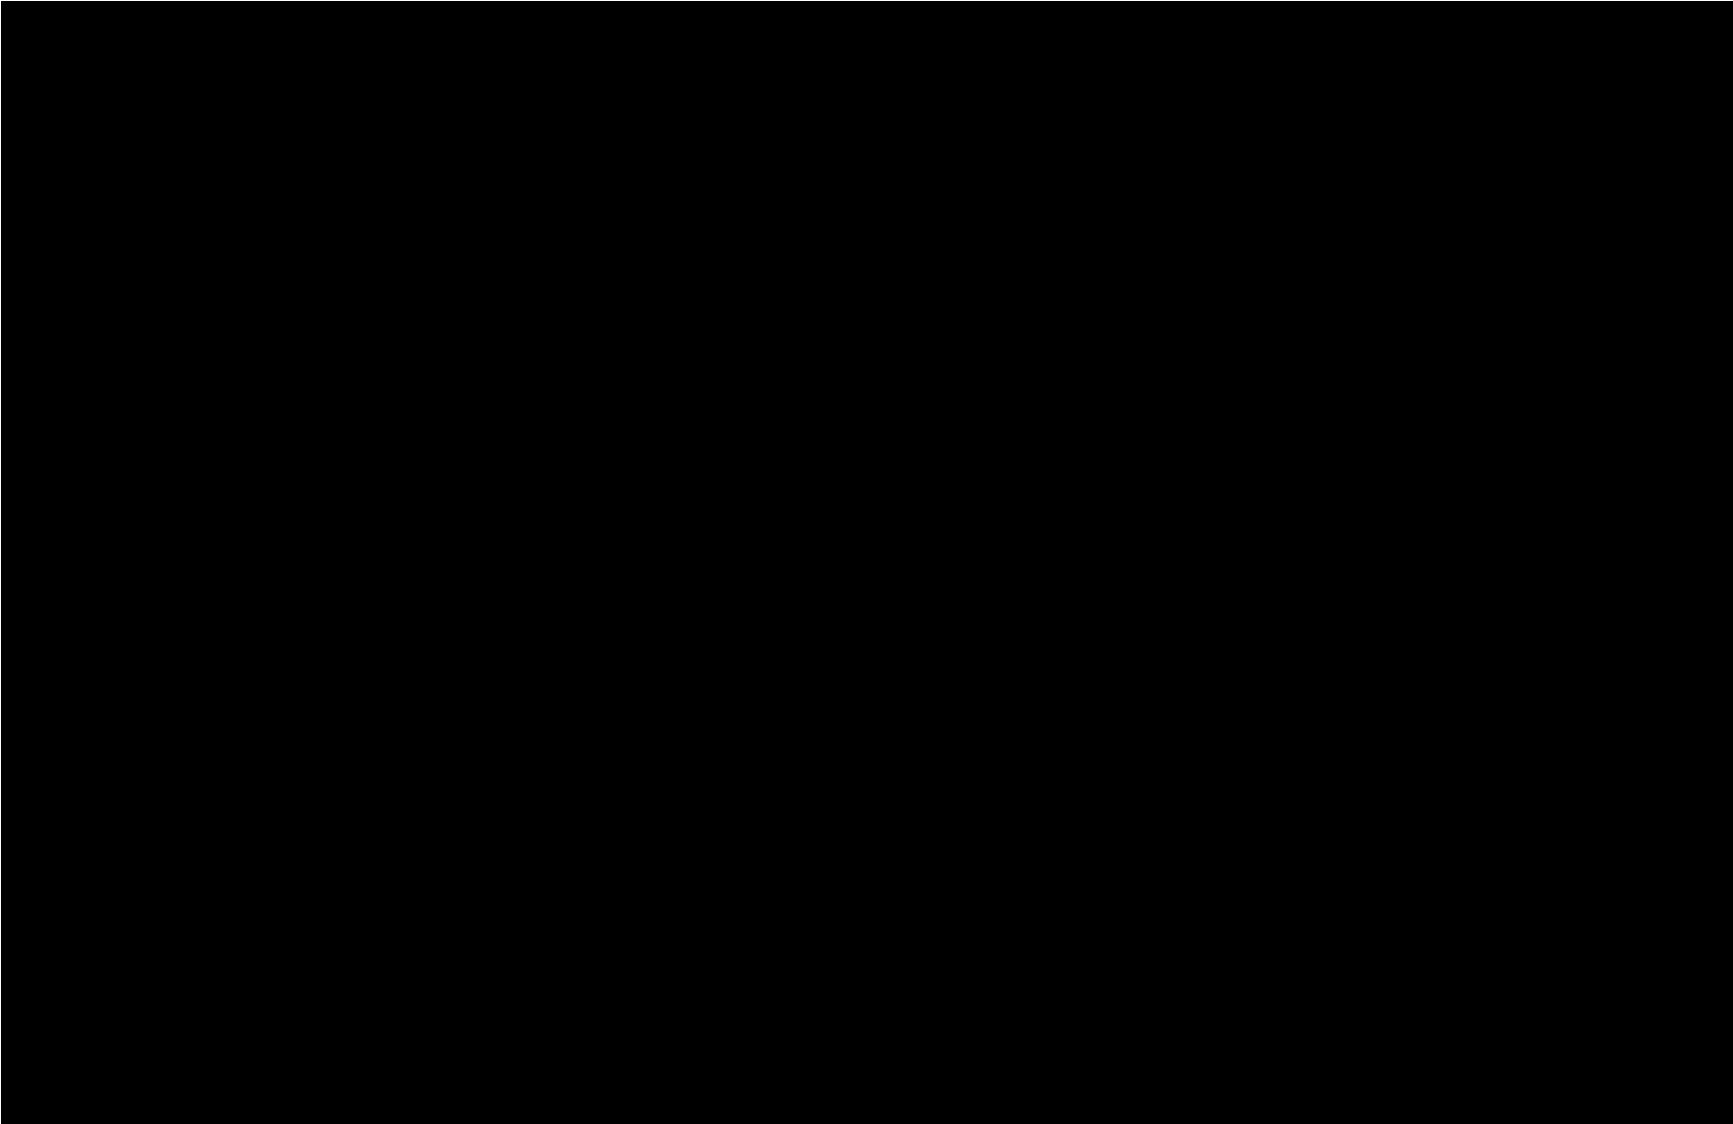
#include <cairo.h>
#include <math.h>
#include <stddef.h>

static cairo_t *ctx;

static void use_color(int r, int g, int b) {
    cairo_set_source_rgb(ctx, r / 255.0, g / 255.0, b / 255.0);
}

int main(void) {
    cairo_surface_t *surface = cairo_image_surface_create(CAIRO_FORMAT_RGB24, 1733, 1124);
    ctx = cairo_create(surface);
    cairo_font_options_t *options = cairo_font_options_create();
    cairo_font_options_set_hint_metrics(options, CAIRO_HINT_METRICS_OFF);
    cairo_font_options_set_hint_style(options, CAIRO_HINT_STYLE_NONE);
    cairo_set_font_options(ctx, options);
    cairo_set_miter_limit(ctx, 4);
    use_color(255, 255, 255);
    cairo_paint(ctx);
    use_color(0, 0, 0);
    cairo_rectangle(ctx, 1, 1, 1732, 1123);
    cairo_fill(ctx);
    cairo_surface_write_to_png(surface, "result.png");
    cairo_font_options_destroy(options);
    cairo_destroy(ctx);
    cairo_surface_destroy(surface);
    return 0;
}
